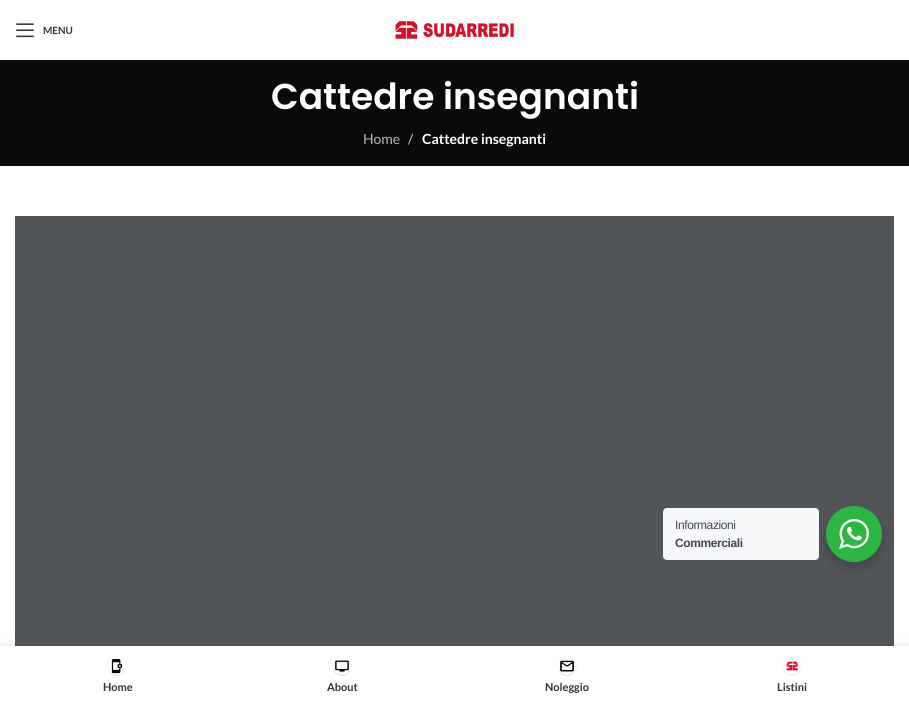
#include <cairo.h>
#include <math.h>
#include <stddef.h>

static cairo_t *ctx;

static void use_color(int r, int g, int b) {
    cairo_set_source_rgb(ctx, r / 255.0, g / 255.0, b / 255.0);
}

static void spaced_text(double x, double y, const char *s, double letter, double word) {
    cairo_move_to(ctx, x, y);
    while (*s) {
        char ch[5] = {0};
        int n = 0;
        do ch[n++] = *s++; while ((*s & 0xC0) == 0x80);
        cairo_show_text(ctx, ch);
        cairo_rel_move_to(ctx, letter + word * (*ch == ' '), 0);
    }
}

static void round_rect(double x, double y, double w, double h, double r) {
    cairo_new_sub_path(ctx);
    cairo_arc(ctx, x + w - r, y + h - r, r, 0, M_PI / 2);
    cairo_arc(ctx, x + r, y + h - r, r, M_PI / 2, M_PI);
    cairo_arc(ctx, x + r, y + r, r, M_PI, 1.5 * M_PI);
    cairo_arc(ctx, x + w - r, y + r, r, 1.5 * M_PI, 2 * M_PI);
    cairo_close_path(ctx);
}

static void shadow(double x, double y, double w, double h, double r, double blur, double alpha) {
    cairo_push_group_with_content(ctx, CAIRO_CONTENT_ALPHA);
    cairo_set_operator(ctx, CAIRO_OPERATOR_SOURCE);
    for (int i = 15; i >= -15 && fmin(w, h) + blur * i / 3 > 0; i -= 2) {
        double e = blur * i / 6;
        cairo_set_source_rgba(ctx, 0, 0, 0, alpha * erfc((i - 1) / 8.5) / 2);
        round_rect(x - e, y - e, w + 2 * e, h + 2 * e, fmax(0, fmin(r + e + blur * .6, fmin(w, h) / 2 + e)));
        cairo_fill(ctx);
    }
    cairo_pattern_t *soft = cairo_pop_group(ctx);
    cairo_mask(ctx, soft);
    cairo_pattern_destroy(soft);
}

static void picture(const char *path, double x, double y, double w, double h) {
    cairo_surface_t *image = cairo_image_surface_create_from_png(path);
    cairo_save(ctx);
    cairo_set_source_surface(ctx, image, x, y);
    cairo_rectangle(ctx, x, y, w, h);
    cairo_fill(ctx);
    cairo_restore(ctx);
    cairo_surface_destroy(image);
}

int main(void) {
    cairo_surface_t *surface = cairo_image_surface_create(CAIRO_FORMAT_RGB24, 909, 701);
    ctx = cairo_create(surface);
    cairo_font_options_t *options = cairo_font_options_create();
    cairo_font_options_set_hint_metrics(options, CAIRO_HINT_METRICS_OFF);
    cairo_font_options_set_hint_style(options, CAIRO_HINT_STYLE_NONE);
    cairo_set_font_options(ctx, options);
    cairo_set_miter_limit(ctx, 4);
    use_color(255, 255, 255);
    cairo_paint(ctx);
    picture("img1.png", 16, 23, 18, 15);
    cairo_select_font_face(ctx, "Lato", CAIRO_FONT_SLANT_NORMAL, CAIRO_FONT_WEIGHT_BOLD);
    cairo_set_font_size(ctx, 10);
    use_color(51, 51, 51);
    cairo_move_to(ctx, 43, 34);
    cairo_show_text(ctx, "MENU");
    picture("img2.png", 395, 21, 119, 18);
    use_color(10, 10, 10);
    cairo_rectangle(ctx, 0, 60, 909, 106);
    cairo_fill(ctx);
    cairo_select_font_face(ctx, "Poppins SemiBold", CAIRO_FONT_SLANT_NORMAL, CAIRO_FONT_WEIGHT_NORMAL);
    cairo_set_font_size(ctx, 36);
    use_color(255, 255, 255);
    cairo_move_to(ctx, 271, 109);
    cairo_show_text(ctx, "Cattedre insegnanti");
    cairo_select_font_face(ctx, "Lato", CAIRO_FONT_SLANT_NORMAL, CAIRO_FONT_WEIGHT_NORMAL);
    cairo_set_font_size(ctx, 14);
    use_color(182, 182, 182);
    cairo_move_to(ctx, 363, 144);
    cairo_show_text(ctx, "Home");
    use_color(206, 206, 206);
    cairo_move_to(ctx, 408, 144);
    cairo_show_text(ctx, "/");
    cairo_select_font_face(ctx, "Lato", CAIRO_FONT_SLANT_NORMAL, CAIRO_FONT_WEIGHT_BOLD);
    use_color(255, 255, 255);
    cairo_move_to(ctx, 422, 144);
    cairo_show_text(ctx, "Cattedre insegnanti");
    use_color(81, 85, 88);
    cairo_rectangle(ctx, 15, 216, 879, 430);
    cairo_fill(ctx);
    use_color(0, 0, 0);
    shadow(824, 510, 60, 60, 30, 4, 0.14);
    use_color(245, 247, 249);
    round_rect(663, 508, 156, 52, 4);
    cairo_fill(ctx);
    cairo_select_font_face(ctx, "Liberation Sans", CAIRO_FONT_SLANT_NORMAL, CAIRO_FONT_WEIGHT_NORMAL);
    cairo_set_font_size(ctx, 12);
    use_color(67, 71, 78);
    spaced_text(675, 529, "Informazioni", -0.4, 0);
    cairo_select_font_face(ctx, "Liberation Sans", CAIRO_FONT_SLANT_NORMAL, CAIRO_FONT_WEIGHT_BOLD);
    spaced_text(675, 547, "Commerciali", -0.4, 0);
    use_color(45, 183, 66);
    cairo_new_path(ctx);
    cairo_arc(ctx, 854, 534, 28, 0, 2 * M_PI);
    cairo_fill(ctx);
    picture("img3.png", 839, 519, 30, 30);
    use_color(0, 0, 0);
    shadow(0, 646, 909, 55, 0, 4.5, 0.12);
    use_color(255, 255, 255);
    cairo_rectangle(ctx, 0, 646, 909, 55);
    cairo_fill(ctx);
    picture("img4.png", 107, 658, 20, 18);
    cairo_select_font_face(ctx, "Lato", CAIRO_FONT_SLANT_NORMAL, CAIRO_FONT_WEIGHT_BOLD);
    cairo_set_font_size(ctx, 11);
    use_color(51, 51, 51);
    cairo_move_to(ctx, 103, 691);
    cairo_show_text(ctx, "Home");
    picture("img5.png", 332, 659, 20, 17);
    cairo_move_to(ctx, 327, 691);
    cairo_show_text(ctx, "About");
    picture("img6.png", 557, 657, 20, 19);
    cairo_move_to(ctx, 545, 691);
    cairo_show_text(ctx, "Noleggio");
    picture("img7.png", 782, 657, 20, 19);
    cairo_move_to(ctx, 777, 691);
    cairo_show_text(ctx, "Listini");
    cairo_surface_write_to_png(surface, "result.png");
    cairo_font_options_destroy(options);
    cairo_destroy(ctx);
    cairo_surface_destroy(surface);
    return 0;
}
